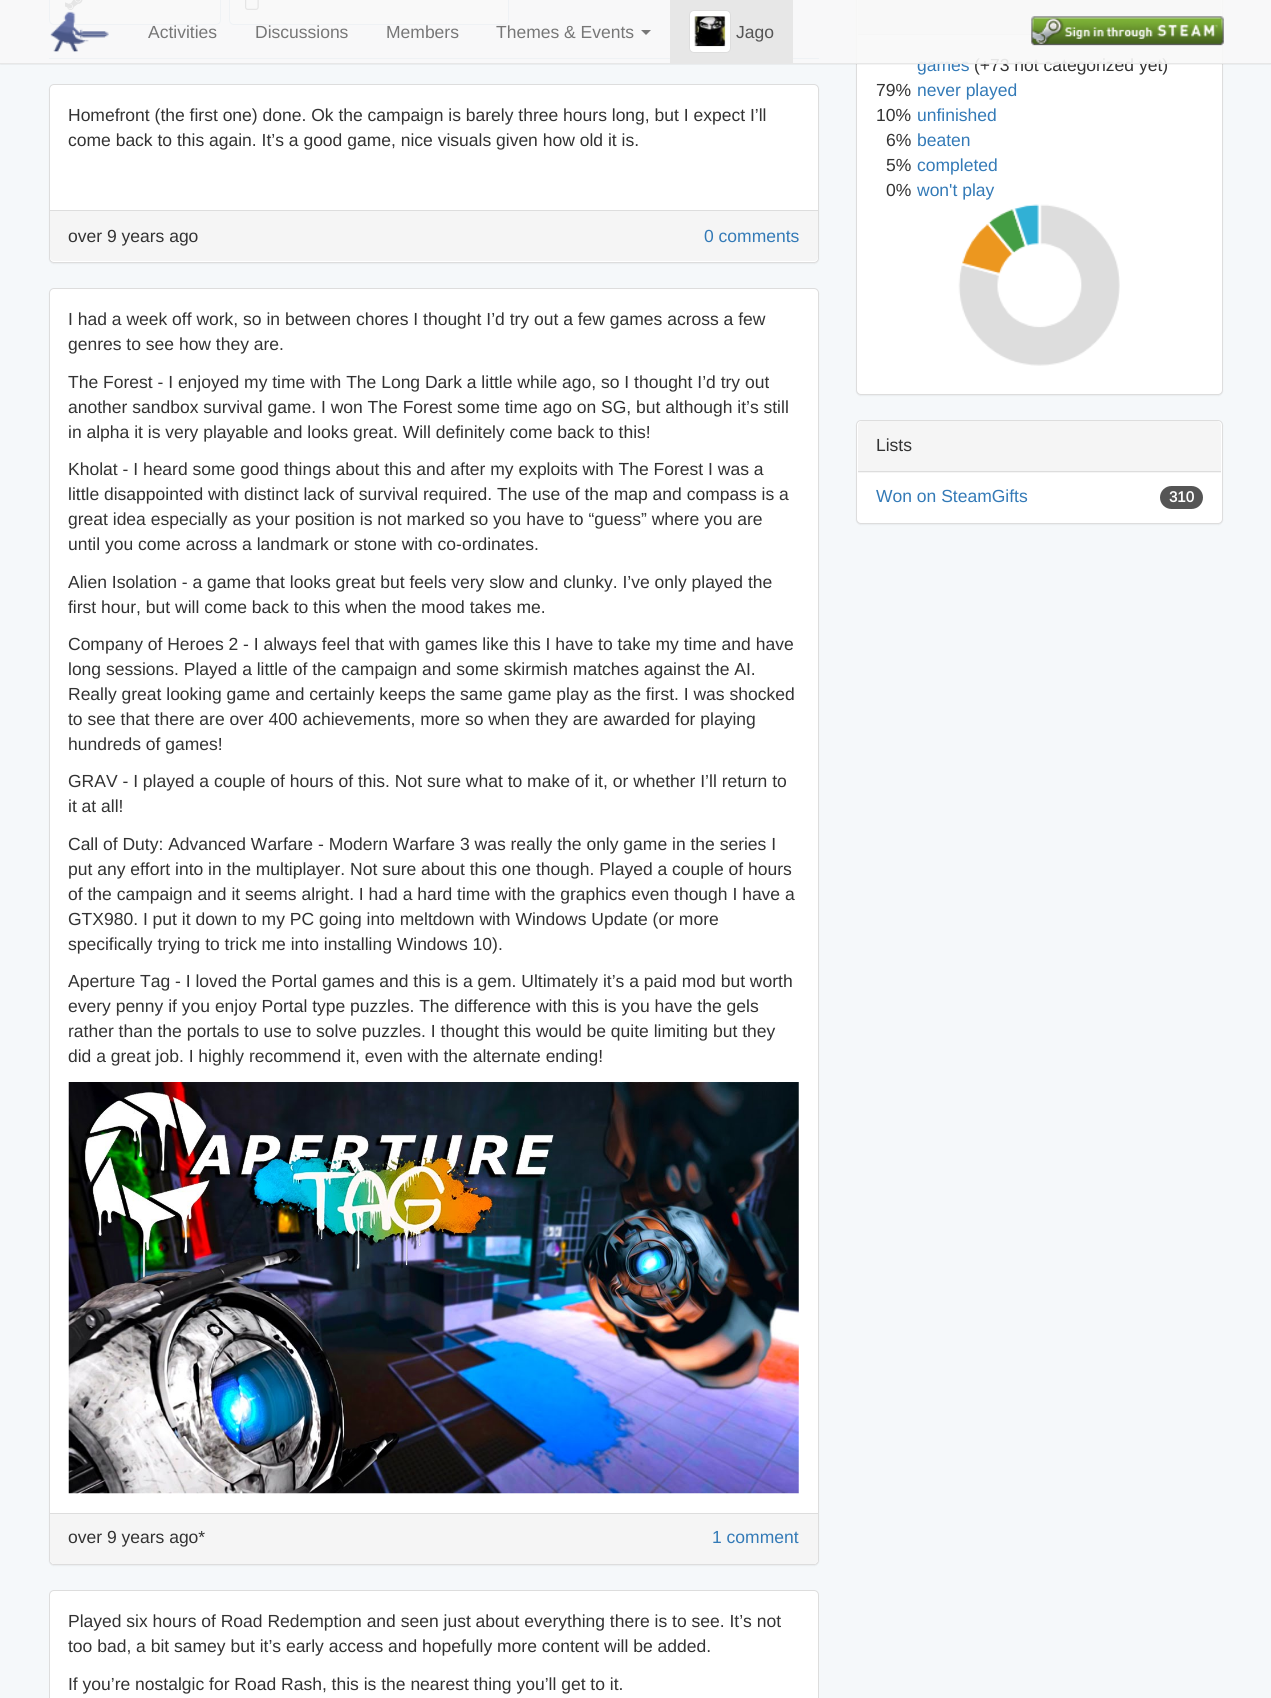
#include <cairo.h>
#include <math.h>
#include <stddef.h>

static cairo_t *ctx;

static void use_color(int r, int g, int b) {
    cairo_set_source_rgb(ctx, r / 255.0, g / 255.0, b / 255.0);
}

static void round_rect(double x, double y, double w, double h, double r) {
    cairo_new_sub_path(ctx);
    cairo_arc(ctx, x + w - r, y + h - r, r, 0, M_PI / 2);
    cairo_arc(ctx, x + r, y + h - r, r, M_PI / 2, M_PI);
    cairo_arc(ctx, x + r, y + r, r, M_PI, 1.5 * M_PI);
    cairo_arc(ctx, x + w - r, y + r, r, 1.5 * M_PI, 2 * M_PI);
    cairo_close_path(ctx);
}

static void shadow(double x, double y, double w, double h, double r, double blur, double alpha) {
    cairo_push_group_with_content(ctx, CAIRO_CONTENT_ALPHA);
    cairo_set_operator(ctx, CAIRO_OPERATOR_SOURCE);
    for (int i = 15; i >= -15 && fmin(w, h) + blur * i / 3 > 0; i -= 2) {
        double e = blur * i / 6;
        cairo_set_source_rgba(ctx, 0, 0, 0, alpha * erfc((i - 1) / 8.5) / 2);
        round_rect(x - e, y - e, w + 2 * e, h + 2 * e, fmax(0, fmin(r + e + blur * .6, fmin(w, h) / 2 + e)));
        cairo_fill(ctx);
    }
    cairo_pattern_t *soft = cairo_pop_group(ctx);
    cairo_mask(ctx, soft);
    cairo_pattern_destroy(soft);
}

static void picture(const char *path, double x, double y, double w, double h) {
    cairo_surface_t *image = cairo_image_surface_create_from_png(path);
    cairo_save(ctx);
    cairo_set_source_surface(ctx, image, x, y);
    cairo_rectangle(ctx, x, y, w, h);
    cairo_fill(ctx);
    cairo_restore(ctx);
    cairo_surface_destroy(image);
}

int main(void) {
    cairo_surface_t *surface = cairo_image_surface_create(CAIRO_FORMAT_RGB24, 1271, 1698);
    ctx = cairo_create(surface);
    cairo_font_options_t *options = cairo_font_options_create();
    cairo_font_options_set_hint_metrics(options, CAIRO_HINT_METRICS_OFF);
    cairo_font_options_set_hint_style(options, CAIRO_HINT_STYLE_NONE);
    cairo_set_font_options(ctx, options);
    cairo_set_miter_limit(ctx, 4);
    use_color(245, 248, 250);
    cairo_paint(ctx);
    use_color(255, 255, 255);
    round_rect(49.5, -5.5, 171, 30, 4.5);
    cairo_fill_preserve(ctx);
    use_color(148, 185, 217);
    cairo_set_line_width(ctx, 1);
    cairo_stroke(ctx);
    picture("img4.png", 65, 0, 18, 10);
    use_color(255, 255, 255);
    round_rect(229.5, -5.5, 279, 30, 4.5);
    cairo_fill_preserve(ctx);
    use_color(148, 185, 217);
    cairo_stroke(ctx);
    picture("img5.png", 245, 0, 14, 10);
    cairo_rectangle(ctx, 49, 58, 770, 1);
    cairo_fill(ctx);
    use_color(0, 0, 0);
    shadow(856, -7, 367, 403, 5, 0.5, 0.05);
    use_color(255, 255, 255);
    round_rect(856.5, -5.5, 366, 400, 4.5);
    cairo_fill_preserve(ctx);
    use_color(221, 221, 221);
    cairo_stroke(ctx);
    use_color(245, 245, 245);
    cairo_rectangle(ctx, 858, 0, 363, 34);
    cairo_fill(ctx);
    use_color(221, 221, 221);
    cairo_rectangle(ctx, 858, 34, 174, 1);
    cairo_fill(ctx);
    cairo_save(ctx);
    cairo_rectangle(ctx, 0, 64, 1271, 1);
    cairo_clip(ctx);
    use_color(0, 0, 0);
    shadow(0, 1, 1271, 64, 0, 0.5, 0.05);
    cairo_restore(ctx);
    cairo_select_font_face(ctx, "Arimo", CAIRO_FONT_SLANT_NORMAL, CAIRO_FONT_WEIGHT_NORMAL);
    cairo_set_font_size(ctx, 17.5);
    use_color(51, 122, 183);
    cairo_move_to(ctx, 917, 71);
    cairo_show_text(ctx, "games");
    use_color(51, 51, 51);
    cairo_move_to(ctx, 974, 71);
    cairo_show_text(ctx, "(+73 not categorized yet)");
    cairo_set_source_rgba(ctx, 0.973, 0.973, 0.973, 0.9);
    cairo_rectangle(ctx, 0, 0, 1271, 63);
    cairo_fill(ctx);
    use_color(231, 231, 231);
    cairo_rectangle(ctx, 0, 63, 1271, 1);
    cairo_fill(ctx);
    picture("img1.png", 50, 11, 59, 41);
    use_color(119, 119, 119);
    cairo_move_to(ctx, 148, 38);
    cairo_show_text(ctx, "Activities");
    cairo_move_to(ctx, 255, 38);
    cairo_show_text(ctx, "Discussions");
    cairo_move_to(ctx, 386, 38);
    cairo_show_text(ctx, "Members");
    cairo_move_to(ctx, 496, 38);
    cairo_show_text(ctx, "Themes & Events");
    cairo_new_path(ctx);
    cairo_move_to(ctx, 641, 30);
    cairo_line_to(ctx, 651, 30);
    cairo_line_to(ctx, 646, 35);
    cairo_close_path(ctx);
    cairo_fill(ctx);
    use_color(231, 231, 231);
    cairo_rectangle(ctx, 670, 0, 123, 63);
    cairo_fill(ctx);
    use_color(255, 255, 255);
    round_rect(689.5, 10.5, 41, 42, 4.5);
    cairo_fill_preserve(ctx);
    use_color(221, 221, 221);
    cairo_stroke(ctx);
    picture("img2.png", 694, 16, 32, 31);
    use_color(85, 85, 85);
    cairo_move_to(ctx, 736, 38);
    cairo_show_text(ctx, "Jago");
    picture("img3.png", 1031, 16, 193, 30);
    use_color(0, 0, 0);
    shadow(49, 85, 770, 179, 5, 0.5, 0.05);
    use_color(255, 255, 255);
    round_rect(49.5, 84.5, 769, 178, 4.5);
    cairo_fill_preserve(ctx);
    use_color(221, 221, 221);
    cairo_stroke(ctx);
    use_color(51, 51, 51);
    cairo_move_to(ctx, 68, 121);
    cairo_show_text(ctx, "Homefront (the first one) done. Ok the campaign is barely three hours long, but I expect I’ll");
    cairo_move_to(ctx, 68, 146);
    cairo_show_text(ctx, "come back to this again. It’s a good game, nice visuals given how old it is.");
    use_color(245, 245, 245);
    cairo_new_path(ctx);
    cairo_move_to(ctx, 50, 210);
    cairo_line_to(ctx, 818, 210);
    cairo_line_to(ctx, 818, 257);
    cairo_curve_to(ctx, 818, 259, 816, 261, 814, 261);
    cairo_line_to(ctx, 54, 261);
    cairo_curve_to(ctx, 52, 261, 50, 259, 50, 257);
    cairo_close_path(ctx);
    cairo_fill(ctx);
    use_color(221, 221, 221);
    cairo_rectangle(ctx, 50, 210, 768, 1);
    cairo_fill(ctx);
    use_color(51, 51, 51);
    cairo_move_to(ctx, 68, 242);
    cairo_show_text(ctx, "over 9 years ago");
    use_color(51, 122, 183);
    cairo_move_to(ctx, 704, 242);
    cairo_show_text(ctx, "0 comments");
    use_color(0, 0, 0);
    shadow(49, 289, 770, 1277, 5, 0.5, 0.05);
    use_color(255, 255, 255);
    round_rect(49.5, 288.5, 769, 1276, 4.5);
    cairo_fill_preserve(ctx);
    use_color(221, 221, 221);
    cairo_stroke(ctx);
    use_color(51, 51, 51);
    cairo_move_to(ctx, 68, 325);
    cairo_show_text(ctx, "I had a week off work, so in between chores I thought I’d try out a few games across a few");
    cairo_move_to(ctx, 68, 350);
    cairo_show_text(ctx, "genres to see how they are.");
    cairo_move_to(ctx, 68, 388);
    cairo_show_text(ctx, "The Forest - I enjoyed my time with The Long Dark a little while ago, so I thought I’d try out");
    cairo_move_to(ctx, 68, 413);
    cairo_show_text(ctx, "another sandbox survival game. I won The Forest some time ago on SG, but although it’s still");
    cairo_move_to(ctx, 68, 438);
    cairo_show_text(ctx, "in alpha it is very playable and looks great. Will definitely come back to this!");
    cairo_move_to(ctx, 68, 475);
    cairo_show_text(ctx, "Kholat - I heard some good things about this and after my exploits with The Forest I was a");
    cairo_move_to(ctx, 68, 500);
    cairo_show_text(ctx, "little disappointed with distinct lack of survival required. The use of the map and compass is a");
    cairo_move_to(ctx, 68, 525);
    cairo_show_text(ctx, "great idea especially as your position is not marked so you have to “guess” where you are");
    cairo_move_to(ctx, 68, 550);
    cairo_show_text(ctx, "until you come across a landmark or stone with co-ordinates.");
    cairo_move_to(ctx, 68, 588);
    cairo_show_text(ctx, "Alien Isolation - a game that looks great but feels very slow and clunky. I’ve only played the");
    cairo_move_to(ctx, 68, 613);
    cairo_show_text(ctx, "first hour, but will come back to this when the mood takes me.");
    cairo_move_to(ctx, 68, 650);
    cairo_show_text(ctx, "Company of Heroes 2 - I always feel that with games like this I have to take my time and have");
    cairo_move_to(ctx, 68, 675);
    cairo_show_text(ctx, "long sessions. Played a little of the campaign and some skirmish matches against the AI.");
    cairo_move_to(ctx, 68, 700);
    cairo_show_text(ctx, "Really great looking game and certainly keeps the same game play as the first. I was shocked");
    cairo_move_to(ctx, 68, 725);
    cairo_show_text(ctx, "to see that there are over 400 achievements, more so when they are awarded for playing");
    cairo_move_to(ctx, 68, 750);
    cairo_show_text(ctx, "hundreds of games!");
    cairo_move_to(ctx, 68, 787);
    cairo_show_text(ctx, "GRAV - I played a couple of hours of this. Not sure what to make of it, or whether I’ll return to");
    cairo_move_to(ctx, 68, 812);
    cairo_show_text(ctx, "it at all!");
    cairo_move_to(ctx, 68, 850);
    cairo_show_text(ctx, "Call of Duty: Advanced Warfare - Modern Warfare 3 was really the only game in the series I");
    cairo_move_to(ctx, 68, 875);
    cairo_show_text(ctx, "put any effort into in the multiplayer. Not sure about this one though. Played a couple of hours");
    cairo_move_to(ctx, 68, 900);
    cairo_show_text(ctx, "of the campaign and it seems alright. I had a hard time with the graphics even though I have a");
    cairo_move_to(ctx, 68, 925);
    cairo_show_text(ctx, "GTX980. I put it down to my PC going into meltdown with Windows Update (or more");
    cairo_move_to(ctx, 68, 950);
    cairo_show_text(ctx, "specifically trying to trick me into installing Windows 10).");
    cairo_move_to(ctx, 68, 987);
    cairo_show_text(ctx, "Aperture Tag - I loved the Portal games and this is a gem. Ultimately it’s a paid mod but worth");
    cairo_move_to(ctx, 68, 1012);
    cairo_show_text(ctx, "every penny if you enjoy Portal type puzzles. The difference with this is you have the gels");
    cairo_move_to(ctx, 68, 1037);
    cairo_show_text(ctx, "rather than the portals to use to solve puzzles. I thought this would be quite limiting but they");
    cairo_move_to(ctx, 68, 1062);
    cairo_show_text(ctx, "did a great job. I highly recommend it, even with the alternate ending!");
    picture("img6.png", 68, 1082, 731, 412);
    use_color(245, 245, 245);
    cairo_new_path(ctx);
    cairo_move_to(ctx, 50, 1513);
    cairo_line_to(ctx, 818, 1513);
    cairo_line_to(ctx, 818, 1560);
    cairo_curve_to(ctx, 818, 1562, 816, 1564, 814, 1564);
    cairo_line_to(ctx, 54, 1564);
    cairo_curve_to(ctx, 52, 1564, 50, 1562, 50, 1560);
    cairo_close_path(ctx);
    cairo_fill(ctx);
    use_color(221, 221, 221);
    cairo_rectangle(ctx, 50, 1513, 768, 1);
    cairo_fill(ctx);
    use_color(51, 51, 51);
    cairo_move_to(ctx, 68, 1543);
    cairo_show_text(ctx, "over 9 years ago*");
    use_color(51, 122, 183);
    cairo_move_to(ctx, 712, 1543);
    cairo_show_text(ctx, "1 comment");
    use_color(255, 255, 255);
    round_rect(49.5, 1590.5, 769, 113, 4.5);
    cairo_fill_preserve(ctx);
    use_color(221, 221, 221);
    cairo_stroke(ctx);
    use_color(51, 51, 51);
    cairo_move_to(ctx, 68, 1627);
    cairo_show_text(ctx, "Played six hours of Road Redemption and seen just about everything there is to see. It’s not");
    cairo_move_to(ctx, 68, 1652);
    cairo_show_text(ctx, "too bad, a bit samey but it’s early access and hopefully more content will be added.");
    cairo_move_to(ctx, 68, 1690);
    cairo_show_text(ctx, "If you’re nostalgic for Road Rash, this is the nearest thing you’ll get to it.");
    cairo_move_to(ctx, 876, 96);
    cairo_show_text(ctx, "79%");
    use_color(51, 122, 183);
    cairo_move_to(ctx, 917, 96);
    cairo_show_text(ctx, "never played");
    use_color(51, 51, 51);
    cairo_move_to(ctx, 876, 121);
    cairo_show_text(ctx, "10%");
    use_color(51, 122, 183);
    cairo_move_to(ctx, 917, 121);
    cairo_show_text(ctx, "unfinished");
    use_color(51, 51, 51);
    cairo_move_to(ctx, 886, 146);
    cairo_show_text(ctx, "6%");
    use_color(51, 122, 183);
    cairo_move_to(ctx, 917, 146);
    cairo_show_text(ctx, "beaten");
    use_color(51, 51, 51);
    cairo_move_to(ctx, 886, 171);
    cairo_show_text(ctx, "5%");
    use_color(51, 122, 183);
    cairo_move_to(ctx, 917, 171);
    cairo_show_text(ctx, "completed");
    use_color(51, 51, 51);
    cairo_move_to(ctx, 886, 196);
    cairo_show_text(ctx, "0%");
    use_color(51, 122, 183);
    cairo_move_to(ctx, 917, 196);
    cairo_show_text(ctx, "won't play");
    picture("img7.png", 958, 204, 162, 162);
    use_color(0, 0, 0);
    shadow(856, 421, 367, 104, 5, 0.5, 0.05);
    use_color(255, 255, 255);
    round_rect(856.5, 420.5, 366, 103, 4.5);
    cairo_fill_preserve(ctx);
    use_color(221, 221, 221);
    cairo_stroke(ctx);
    use_color(245, 245, 245);
    cairo_new_path(ctx);
    cairo_move_to(ctx, 862, 421);
    cairo_line_to(ctx, 1217, 421);
    cairo_curve_to(ctx, 1219, 421, 1221, 423, 1221, 425);
    cairo_line_to(ctx, 1221, 473);
    cairo_line_to(ctx, 858, 473);
    cairo_line_to(ctx, 858, 425);
    cairo_curve_to(ctx, 858, 423, 860, 421, 862, 421);
    cairo_close_path(ctx);
    cairo_fill(ctx);
    use_color(221, 221, 221);
    cairo_rectangle(ctx, 858, 471, 363, 1);
    cairo_fill(ctx);
    use_color(51, 51, 51);
    cairo_move_to(ctx, 876, 451);
    cairo_show_text(ctx, "Lists");
    use_color(51, 122, 183);
    cairo_move_to(ctx, 876, 502);
    cairo_show_text(ctx, "Won on SteamGifts");
    use_color(85, 85, 85);
    round_rect(1160, 486, 43, 23, 11.5);
    cairo_fill(ctx);
    cairo_select_font_face(ctx, "Arimo", CAIRO_FONT_SLANT_NORMAL, CAIRO_FONT_WEIGHT_BOLD);
    cairo_set_font_size(ctx, 15);
    use_color(255, 255, 255);
    cairo_move_to(ctx, 1169, 502);
    cairo_show_text(ctx, "310");
    cairo_surface_write_to_png(surface, "result.png");
    cairo_font_options_destroy(options);
    cairo_destroy(ctx);
    cairo_surface_destroy(surface);
    return 0;
}
